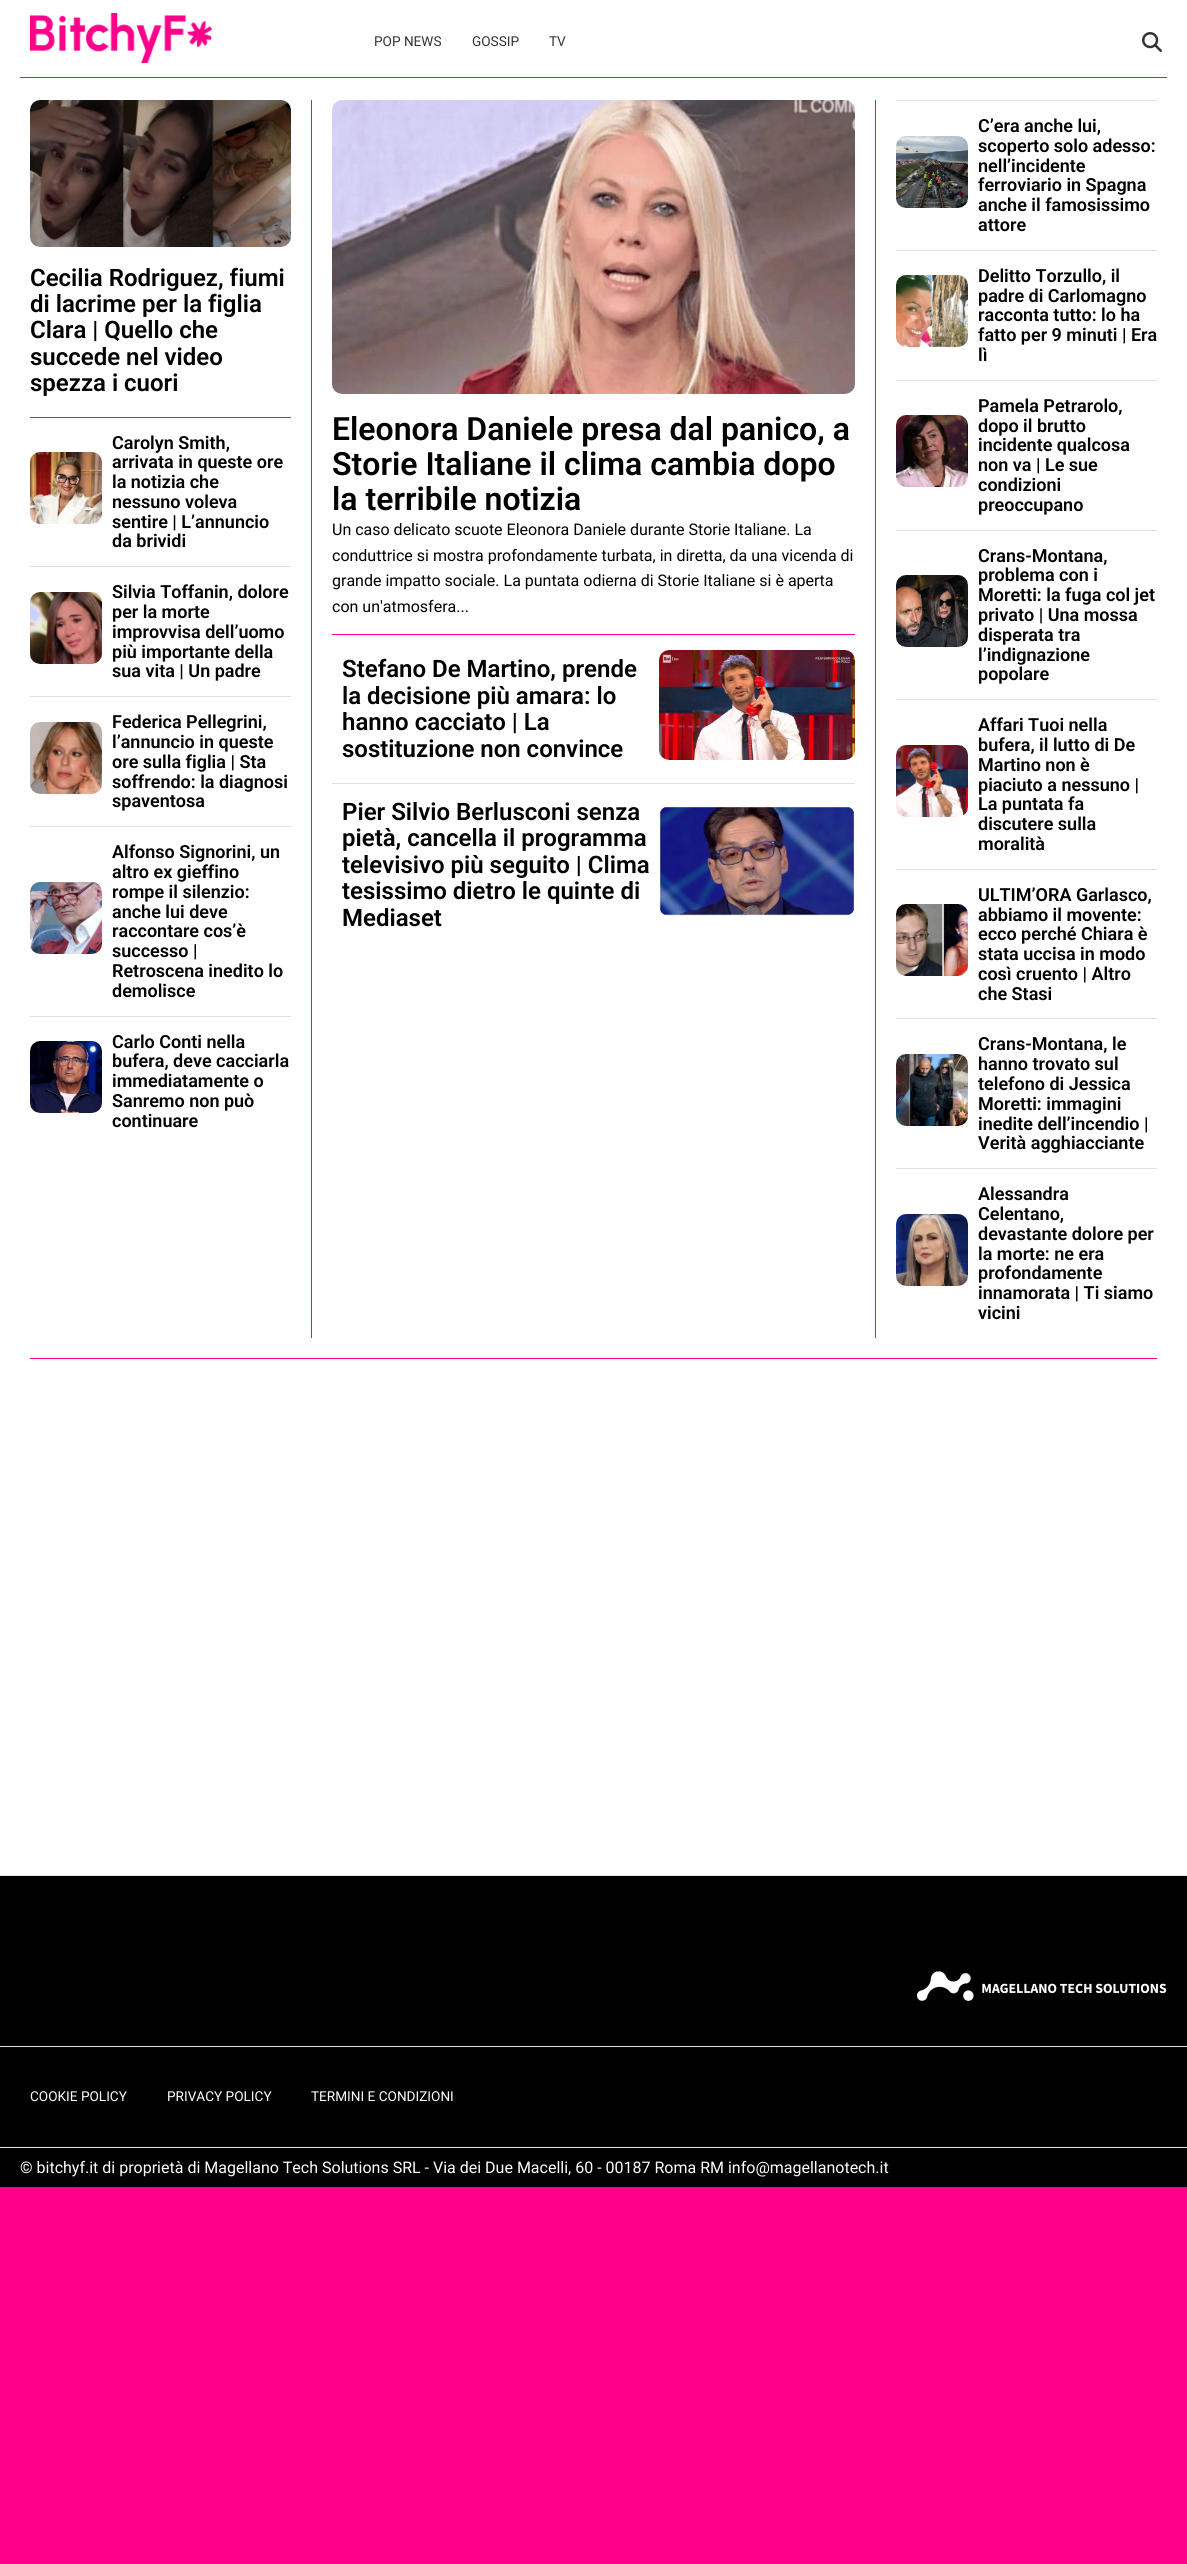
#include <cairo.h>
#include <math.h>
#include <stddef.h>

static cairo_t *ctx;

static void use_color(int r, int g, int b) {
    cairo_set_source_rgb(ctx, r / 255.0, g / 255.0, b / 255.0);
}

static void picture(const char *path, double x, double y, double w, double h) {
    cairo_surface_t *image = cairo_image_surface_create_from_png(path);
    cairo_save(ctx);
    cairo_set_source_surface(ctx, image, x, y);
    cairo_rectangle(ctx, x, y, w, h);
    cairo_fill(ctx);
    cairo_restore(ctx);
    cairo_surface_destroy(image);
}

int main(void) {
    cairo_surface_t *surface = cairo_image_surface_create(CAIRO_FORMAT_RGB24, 1187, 2564);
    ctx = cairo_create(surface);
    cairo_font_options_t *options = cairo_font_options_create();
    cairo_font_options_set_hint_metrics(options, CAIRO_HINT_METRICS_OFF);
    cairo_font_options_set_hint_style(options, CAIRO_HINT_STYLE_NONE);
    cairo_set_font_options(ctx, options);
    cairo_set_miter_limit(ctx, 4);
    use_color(255, 0, 138);
    cairo_paint(ctx);
    use_color(255, 255, 255);
    cairo_rectangle(ctx, 0, 0, 1187, 1875);
    cairo_fill(ctx);
    use_color(255, 0, 138);
    cairo_rectangle(ctx, 20, 77, 1147, 1);
    cairo_fill(ctx);
    picture("img1.png", 30, 13, 182, 50);
    cairo_select_font_face(ctx, "Roboto", CAIRO_FONT_SLANT_NORMAL, CAIRO_FONT_WEIGHT_NORMAL);
    cairo_set_font_size(ctx, 13.6);
    use_color(51, 51, 51);
    cairo_move_to(ctx, 374, 46);
    cairo_show_text(ctx, "POP NEWS");
    cairo_move_to(ctx, 472, 46);
    cairo_show_text(ctx, "GOSSIP");
    cairo_move_to(ctx, 549, 46);
    cairo_show_text(ctx, "TV");
    picture("img2.png", 1142, 32, 20, 20);
    use_color(255, 0, 138);
    cairo_rectangle(ctx, 30, 1358, 1127, 1);
    cairo_fill(ctx);
    cairo_rectangle(ctx, 311, 100, 1, 1238);
    cairo_fill(ctx);
    cairo_rectangle(ctx, 30, 417, 261, 1);
    cairo_fill(ctx);
    picture("img3.png", 30, 100, 261, 147);
    cairo_select_font_face(ctx, "Roboto SemiBold", CAIRO_FONT_SLANT_NORMAL, CAIRO_FONT_WEIGHT_NORMAL);
    cairo_set_font_size(ctx, 24);
    use_color(0, 0, 0);
    cairo_move_to(ctx, 30, 286);
    cairo_show_text(ctx, "Cecilia Rodriguez, fiumi");
    cairo_move_to(ctx, 30, 312);
    cairo_show_text(ctx, "di lacrime per la figlia");
    cairo_move_to(ctx, 30, 338);
    cairo_show_text(ctx, "Clara | Quello che");
    cairo_move_to(ctx, 30, 365);
    cairo_show_text(ctx, "succede nel video");
    cairo_move_to(ctx, 30, 391);
    cairo_show_text(ctx, "spezza i cuori");
    picture("img4.png", 30, 452, 72, 72);
    cairo_set_font_size(ctx, 18);
    cairo_move_to(ctx, 112, 449);
    cairo_show_text(ctx, "Carolyn Smith,");
    cairo_move_to(ctx, 112, 468);
    cairo_show_text(ctx, "arrivata in queste ore");
    cairo_move_to(ctx, 112, 488);
    cairo_show_text(ctx, "la notizia che");
    cairo_move_to(ctx, 112, 508);
    cairo_show_text(ctx, "nessuno voleva");
    cairo_move_to(ctx, 112, 528);
    cairo_show_text(ctx, "sentire | L’annuncio");
    cairo_move_to(ctx, 112, 547);
    cairo_show_text(ctx, "da brividi");
    use_color(224, 224, 224);
    cairo_rectangle(ctx, 30, 566, 261, 1);
    cairo_fill(ctx);
    picture("img5.png", 30, 592, 72, 72);
    use_color(0, 0, 0);
    cairo_move_to(ctx, 112, 598);
    cairo_show_text(ctx, "Silvia Toffanin, dolore");
    cairo_move_to(ctx, 112, 618);
    cairo_show_text(ctx, "per la morte");
    cairo_move_to(ctx, 112, 638);
    cairo_show_text(ctx, "improvvisa dell’uomo");
    cairo_move_to(ctx, 112, 658);
    cairo_show_text(ctx, "più importante della");
    cairo_move_to(ctx, 112, 677);
    cairo_show_text(ctx, "sua vita | Un padre");
    use_color(224, 224, 224);
    cairo_rectangle(ctx, 30, 696, 261, 1);
    cairo_fill(ctx);
    picture("img6.png", 30, 722, 72, 72);
    use_color(0, 0, 0);
    cairo_move_to(ctx, 112, 728);
    cairo_show_text(ctx, "Federica Pellegrini,");
    cairo_move_to(ctx, 112, 748);
    cairo_show_text(ctx, "l’annuncio in queste");
    cairo_move_to(ctx, 112, 768);
    cairo_show_text(ctx, "ore sulla figlia | Sta");
    cairo_move_to(ctx, 112, 788);
    cairo_show_text(ctx, "soffrendo: la diagnosi");
    cairo_move_to(ctx, 112, 807);
    cairo_show_text(ctx, "spaventosa");
    use_color(224, 224, 224);
    cairo_rectangle(ctx, 30, 826, 261, 1);
    cairo_fill(ctx);
    picture("img7.png", 30, 882, 72, 72);
    use_color(0, 0, 0);
    cairo_move_to(ctx, 112, 858);
    cairo_show_text(ctx, "Alfonso Signorini, un");
    cairo_move_to(ctx, 112, 878);
    cairo_show_text(ctx, "altro ex gieffino");
    cairo_move_to(ctx, 112, 898);
    cairo_show_text(ctx, "rompe il silenzio:");
    cairo_move_to(ctx, 112, 918);
    cairo_show_text(ctx, "anche lui deve");
    cairo_move_to(ctx, 112, 937);
    cairo_show_text(ctx, "raccontare cos’è");
    cairo_move_to(ctx, 112, 957);
    cairo_show_text(ctx, "successo |");
    cairo_move_to(ctx, 112, 977);
    cairo_show_text(ctx, "Retroscena inedito lo");
    cairo_move_to(ctx, 112, 997);
    cairo_show_text(ctx, "demolisce");
    use_color(224, 224, 224);
    cairo_rectangle(ctx, 30, 1016, 261, 1);
    cairo_fill(ctx);
    picture("img8.png", 30, 1041, 72, 72);
    use_color(0, 0, 0);
    cairo_move_to(ctx, 112, 1048);
    cairo_show_text(ctx, "Carlo Conti nella");
    cairo_move_to(ctx, 112, 1067);
    cairo_show_text(ctx, "bufera, deve cacciarla");
    cairo_move_to(ctx, 112, 1087);
    cairo_show_text(ctx, "immediatamente o");
    cairo_move_to(ctx, 112, 1107);
    cairo_show_text(ctx, "Sanremo non può");
    cairo_move_to(ctx, 112, 1127);
    cairo_show_text(ctx, "continuare");
    picture("img9.png", 332, 100, 523, 294);
    cairo_set_font_size(ctx, 32);
    cairo_move_to(ctx, 332, 440);
    cairo_show_text(ctx, "Eleonora Daniele presa dal panico, a");
    cairo_move_to(ctx, 332, 475);
    cairo_show_text(ctx, "Storie Italiane il clima cambia dopo");
    cairo_move_to(ctx, 332, 510);
    cairo_show_text(ctx, "la terribile notizia");
    cairo_select_font_face(ctx, "Roboto", CAIRO_FONT_SLANT_NORMAL, CAIRO_FONT_WEIGHT_NORMAL);
    cairo_set_font_size(ctx, 16);
    cairo_move_to(ctx, 332, 535);
    cairo_show_text(ctx, "Un caso delicato scuote Eleonora Daniele durante Storie Italiane. La");
    cairo_move_to(ctx, 332, 561);
    cairo_show_text(ctx, "conduttrice si mostra profondamente turbata, in diretta, da una vicenda di");
    cairo_move_to(ctx, 332, 586);
    cairo_show_text(ctx, "grande impatto sociale. La puntata odierna di Storie Italiane si è aperta");
    cairo_move_to(ctx, 332, 612);
    cairo_show_text(ctx, "con un'atmosfera...");
    use_color(255, 0, 138);
    cairo_rectangle(ctx, 332, 634, 523, 1);
    cairo_fill(ctx);
    cairo_select_font_face(ctx, "Roboto SemiBold", CAIRO_FONT_SLANT_NORMAL, CAIRO_FONT_WEIGHT_NORMAL);
    cairo_set_font_size(ctx, 24);
    use_color(0, 0, 0);
    cairo_move_to(ctx, 342, 677);
    cairo_show_text(ctx, "Stefano De Martino, prende");
    cairo_move_to(ctx, 342, 704);
    cairo_show_text(ctx, "la decisione più amara: lo");
    cairo_move_to(ctx, 342, 730);
    cairo_show_text(ctx, "hanno cacciato | La");
    cairo_move_to(ctx, 342, 757);
    cairo_show_text(ctx, "sostituzione non convince");
    picture("img10.png", 659, 650, 196, 110);
    use_color(224, 224, 224);
    cairo_rectangle(ctx, 332, 783, 523, 1);
    cairo_fill(ctx);
    use_color(0, 0, 0);
    cairo_move_to(ctx, 342, 820);
    cairo_show_text(ctx, "Pier Silvio Berlusconi senza");
    cairo_move_to(ctx, 342, 846);
    cairo_show_text(ctx, "pietà, cancella il programma");
    cairo_move_to(ctx, 342, 873);
    cairo_show_text(ctx, "televisivo più seguito | Clima");
    cairo_move_to(ctx, 342, 899);
    cairo_show_text(ctx, "tesissimo dietro le quinte di");
    cairo_move_to(ctx, 342, 926);
    cairo_show_text(ctx, "Mediaset");
    picture("img11.png", 659, 806, 196, 110);
    use_color(255, 0, 138);
    cairo_rectangle(ctx, 875, 100, 1, 1238);
    cairo_fill(ctx);
    use_color(224, 224, 224);
    cairo_rectangle(ctx, 896, 100, 261, 1);
    cairo_fill(ctx);
    picture("img12.png", 896, 136, 72, 72);
    cairo_set_font_size(ctx, 18);
    use_color(0, 0, 0);
    cairo_move_to(ctx, 978, 132);
    cairo_show_text(ctx, "C’era anche lui,");
    cairo_move_to(ctx, 978, 152);
    cairo_show_text(ctx, "scoperto solo adesso:");
    cairo_move_to(ctx, 978, 172);
    cairo_show_text(ctx, "nell’incidente");
    cairo_move_to(ctx, 978, 191);
    cairo_show_text(ctx, "ferroviario in Spagna");
    cairo_move_to(ctx, 978, 211);
    cairo_show_text(ctx, "anche il famosissimo");
    cairo_move_to(ctx, 978, 231);
    cairo_show_text(ctx, "attore");
    use_color(224, 224, 224);
    cairo_rectangle(ctx, 896, 250, 261, 1);
    cairo_fill(ctx);
    picture("img13.png", 896, 275, 72, 72);
    use_color(0, 0, 0);
    cairo_move_to(ctx, 978, 282);
    cairo_show_text(ctx, "Delitto Torzullo, il");
    cairo_move_to(ctx, 978, 302);
    cairo_show_text(ctx, "padre di Carlomagno");
    cairo_move_to(ctx, 978, 321);
    cairo_show_text(ctx, "racconta tutto: lo ha");
    cairo_move_to(ctx, 978, 341);
    cairo_show_text(ctx, "fatto per 9 minuti | Era");
    cairo_move_to(ctx, 978, 361);
    cairo_show_text(ctx, "lì");
    use_color(224, 224, 224);
    cairo_rectangle(ctx, 896, 380, 261, 1);
    cairo_fill(ctx);
    picture("img14.png", 896, 415, 72, 72);
    use_color(0, 0, 0);
    cairo_move_to(ctx, 978, 412);
    cairo_show_text(ctx, "Pamela Petrarolo,");
    cairo_move_to(ctx, 978, 432);
    cairo_show_text(ctx, "dopo il brutto");
    cairo_move_to(ctx, 978, 451);
    cairo_show_text(ctx, "incidente qualcosa");
    cairo_move_to(ctx, 978, 471);
    cairo_show_text(ctx, "non va | Le sue");
    cairo_move_to(ctx, 978, 491);
    cairo_show_text(ctx, "condizioni");
    cairo_move_to(ctx, 978, 511);
    cairo_show_text(ctx, "preoccupano");
    use_color(224, 224, 224);
    cairo_rectangle(ctx, 896, 530, 261, 1);
    cairo_fill(ctx);
    picture("img15.png", 896, 575, 72, 72);
    use_color(0, 0, 0);
    cairo_move_to(ctx, 978, 562);
    cairo_show_text(ctx, "Crans-Montana,");
    cairo_move_to(ctx, 978, 581);
    cairo_show_text(ctx, "problema con i");
    cairo_move_to(ctx, 978, 601);
    cairo_show_text(ctx, "Moretti: la fuga col jet");
    cairo_move_to(ctx, 978, 621);
    cairo_show_text(ctx, "privato | Una mossa");
    cairo_move_to(ctx, 978, 641);
    cairo_show_text(ctx, "disperata tra");
    cairo_move_to(ctx, 978, 661);
    cairo_show_text(ctx, "l’indignazione");
    cairo_move_to(ctx, 978, 680);
    cairo_show_text(ctx, "popolare");
    use_color(224, 224, 224);
    cairo_rectangle(ctx, 896, 699, 261, 1);
    cairo_fill(ctx);
    picture("img16.png", 896, 745, 72, 72);
    use_color(0, 0, 0);
    cairo_move_to(ctx, 978, 731);
    cairo_show_text(ctx, "Affari Tuoi nella");
    cairo_move_to(ctx, 978, 751);
    cairo_show_text(ctx, "bufera, il lutto di De");
    cairo_move_to(ctx, 978, 771);
    cairo_show_text(ctx, "Martino non è");
    cairo_move_to(ctx, 978, 791);
    cairo_show_text(ctx, "piaciuto a nessuno |");
    cairo_move_to(ctx, 978, 810);
    cairo_show_text(ctx, "La puntata fa");
    cairo_move_to(ctx, 978, 830);
    cairo_show_text(ctx, "discutere sulla");
    cairo_move_to(ctx, 978, 850);
    cairo_show_text(ctx, "moralità");
    use_color(224, 224, 224);
    cairo_rectangle(ctx, 896, 869, 261, 1);
    cairo_fill(ctx);
    picture("img17.png", 896, 904, 72, 72);
    use_color(0, 0, 0);
    cairo_move_to(ctx, 978, 901);
    cairo_show_text(ctx, "ULTIM’ORA Garlasco,");
    cairo_move_to(ctx, 978, 921);
    cairo_show_text(ctx, "abbiamo il movente:");
    cairo_move_to(ctx, 978, 940);
    cairo_show_text(ctx, "ecco perché Chiara è");
    cairo_move_to(ctx, 978, 960);
    cairo_show_text(ctx, "stata uccisa in modo");
    cairo_move_to(ctx, 978, 980);
    cairo_show_text(ctx, "così cruento | Altro");
    cairo_move_to(ctx, 978, 1000);
    cairo_show_text(ctx, "che Stasi");
    use_color(224, 224, 224);
    cairo_rectangle(ctx, 896, 1018, 261, 1);
    cairo_fill(ctx);
    picture("img18.png", 896, 1054, 72, 72);
    use_color(0, 0, 0);
    cairo_move_to(ctx, 978, 1050);
    cairo_show_text(ctx, "Crans-Montana, le");
    cairo_move_to(ctx, 978, 1070);
    cairo_show_text(ctx, "hanno trovato sul");
    cairo_move_to(ctx, 978, 1090);
    cairo_show_text(ctx, "telefono di Jessica");
    cairo_move_to(ctx, 978, 1110);
    cairo_show_text(ctx, "Moretti: immagini");
    cairo_move_to(ctx, 978, 1130);
    cairo_show_text(ctx, "inedite dell’incendio |");
    cairo_move_to(ctx, 978, 1149);
    cairo_show_text(ctx, "Verità agghiacciante");
    use_color(224, 224, 224);
    cairo_rectangle(ctx, 896, 1168, 261, 1);
    cairo_fill(ctx);
    picture("img19.png", 896, 1214, 72, 72);
    use_color(0, 0, 0);
    cairo_move_to(ctx, 978, 1200);
    cairo_show_text(ctx, "Alessandra");
    cairo_move_to(ctx, 978, 1220);
    cairo_show_text(ctx, "Celentano,");
    cairo_move_to(ctx, 978, 1240);
    cairo_show_text(ctx, "devastante dolore per");
    cairo_move_to(ctx, 978, 1260);
    cairo_show_text(ctx, "la morte: ne era");
    cairo_move_to(ctx, 978, 1279);
    cairo_show_text(ctx, "profondamente");
    cairo_move_to(ctx, 978, 1299);
    cairo_show_text(ctx, "innamorata | Ti siamo");
    cairo_move_to(ctx, 978, 1319);
    cairo_show_text(ctx, "vicini");
    cairo_rectangle(ctx, 0, 1876, 1187, 311);
    cairo_fill(ctx);
    use_color(224, 224, 224);
    cairo_rectangle(ctx, 0, 1875, 1187, 1);
    cairo_fill(ctx);
    cairo_rectangle(ctx, 0, 2046, 1187, 1);
    cairo_fill(ctx);
    picture("img20.png", 917, 1971, 250, 30);
    cairo_select_font_face(ctx, "Roboto", CAIRO_FONT_SLANT_NORMAL, CAIRO_FONT_WEIGHT_NORMAL);
    cairo_set_font_size(ctx, 13.6);
    use_color(255, 255, 255);
    cairo_move_to(ctx, 30, 2101);
    cairo_show_text(ctx, "COOKIE POLICY");
    cairo_move_to(ctx, 167, 2101);
    cairo_show_text(ctx, "PRIVACY POLICY");
    cairo_move_to(ctx, 311, 2101);
    cairo_show_text(ctx, "TERMINI E CONDIZIONI");
    use_color(224, 224, 224);
    cairo_rectangle(ctx, 0, 2147, 1187, 1);
    cairo_fill(ctx);
    cairo_set_font_size(ctx, 16);
    use_color(255, 255, 255);
    cairo_move_to(ctx, 20, 2173);
    cairo_show_text(ctx, "© bitchyf.it di proprietà di Magellano Tech Solutions SRL - Via dei Due Macelli, 60 - 00187 Roma RM info@magellanotech.it");
    cairo_surface_write_to_png(surface, "result.png");
    cairo_font_options_destroy(options);
    cairo_destroy(ctx);
    cairo_surface_destroy(surface);
    return 0;
}
